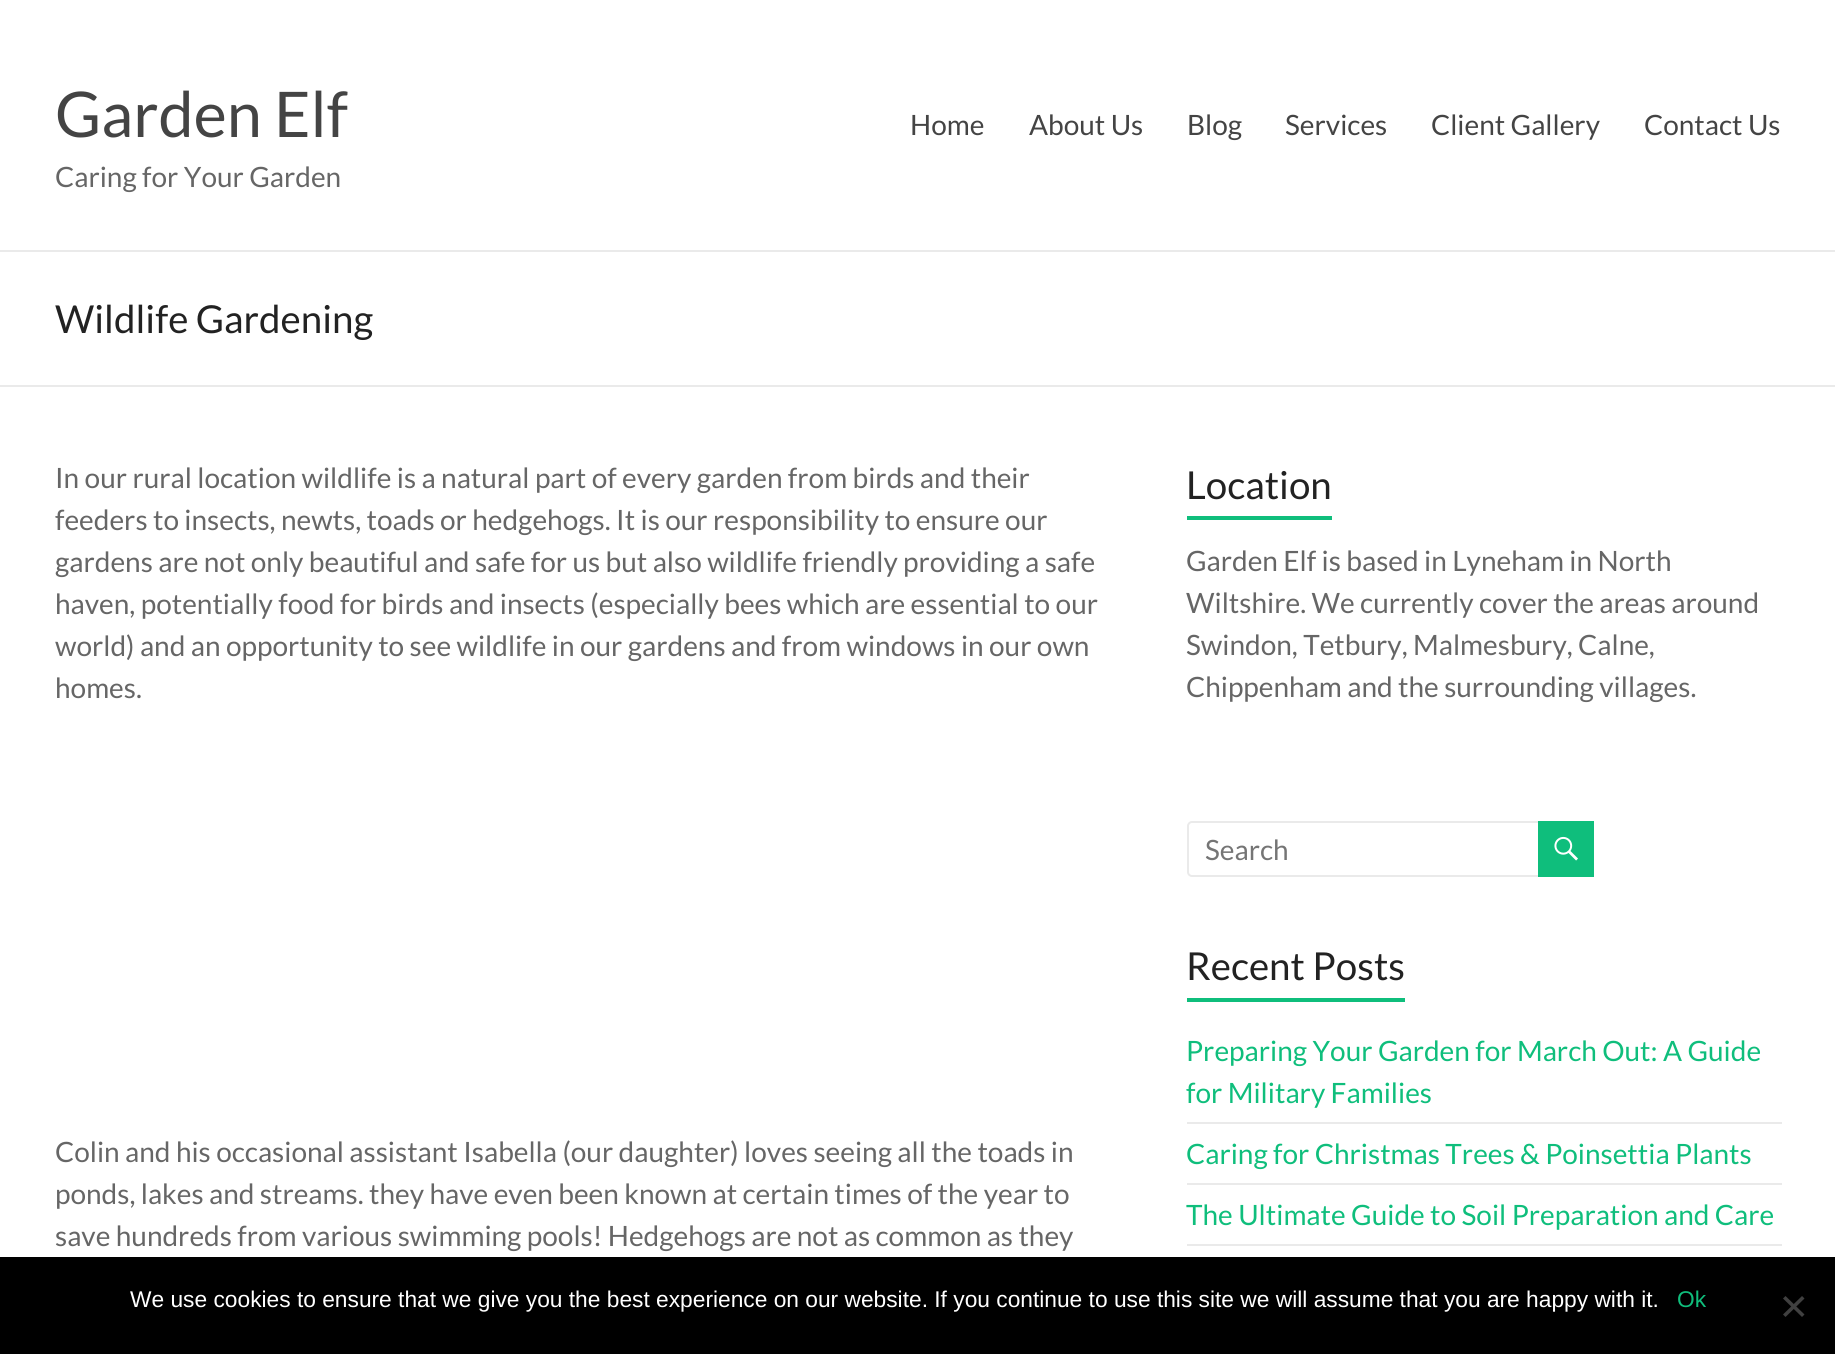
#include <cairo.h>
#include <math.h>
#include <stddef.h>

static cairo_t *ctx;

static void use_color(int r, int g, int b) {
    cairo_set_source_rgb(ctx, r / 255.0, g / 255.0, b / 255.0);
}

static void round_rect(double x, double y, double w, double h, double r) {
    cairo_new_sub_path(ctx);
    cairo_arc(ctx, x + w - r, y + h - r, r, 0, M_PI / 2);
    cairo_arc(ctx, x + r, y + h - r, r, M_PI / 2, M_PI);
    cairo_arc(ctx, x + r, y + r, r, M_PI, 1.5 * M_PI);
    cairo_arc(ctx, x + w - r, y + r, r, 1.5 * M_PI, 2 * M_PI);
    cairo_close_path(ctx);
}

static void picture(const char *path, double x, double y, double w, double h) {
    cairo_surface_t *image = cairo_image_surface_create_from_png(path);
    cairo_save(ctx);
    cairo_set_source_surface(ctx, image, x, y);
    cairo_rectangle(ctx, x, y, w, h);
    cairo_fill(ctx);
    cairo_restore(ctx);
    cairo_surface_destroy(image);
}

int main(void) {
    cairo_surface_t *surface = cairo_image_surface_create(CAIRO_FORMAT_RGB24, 1835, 1354);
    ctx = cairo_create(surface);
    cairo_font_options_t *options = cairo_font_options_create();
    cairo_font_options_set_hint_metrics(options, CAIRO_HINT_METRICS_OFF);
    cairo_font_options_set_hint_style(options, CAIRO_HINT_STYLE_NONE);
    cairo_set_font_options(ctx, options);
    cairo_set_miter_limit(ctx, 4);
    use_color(255, 255, 255);
    cairo_paint(ctx);
    use_color(234, 234, 234);
    cairo_rectangle(ctx, 0, 250, 1835, 2);
    cairo_fill(ctx);
    cairo_select_font_face(ctx, "Lato", CAIRO_FONT_SLANT_NORMAL, CAIRO_FONT_WEIGHT_NORMAL);
    cairo_set_font_size(ctx, 63);
    use_color(68, 68, 68);
    cairo_move_to(ctx, 55, 137);
    cairo_show_text(ctx, "Garden Elf");
    cairo_set_font_size(ctx, 28);
    use_color(102, 102, 102);
    cairo_move_to(ctx, 55, 187);
    cairo_show_text(ctx, "Caring for Your Garden");
    use_color(68, 68, 68);
    cairo_move_to(ctx, 910, 135);
    cairo_show_text(ctx, "Home");
    cairo_move_to(ctx, 1029, 135);
    cairo_show_text(ctx, "About Us");
    cairo_move_to(ctx, 1187, 135);
    cairo_show_text(ctx, "Blog");
    cairo_move_to(ctx, 1285, 135);
    cairo_show_text(ctx, "Services");
    cairo_move_to(ctx, 1431, 135);
    cairo_show_text(ctx, "Client Gallery");
    cairo_move_to(ctx, 1644, 135);
    cairo_show_text(ctx, "Contact Us");
    use_color(234, 234, 234);
    cairo_rectangle(ctx, 0, 385, 1835, 2);
    cairo_fill(ctx);
    cairo_set_font_size(ctx, 38.5);
    use_color(34, 34, 34);
    cairo_move_to(ctx, 55, 333);
    cairo_show_text(ctx, "Wildlife Gardening");
    cairo_set_font_size(ctx, 28);
    use_color(102, 102, 102);
    cairo_move_to(ctx, 55, 488);
    cairo_show_text(ctx, "In our rural location wildlife is a natural part of every garden from birds and their");
    cairo_move_to(ctx, 55, 530);
    cairo_show_text(ctx, "feeders to insects, newts, toads or hedgehogs. It is our responsibility to ensure our");
    cairo_move_to(ctx, 55, 572);
    cairo_show_text(ctx, "gardens are not only beautiful and safe for us but also wildlife friendly providing a safe");
    cairo_move_to(ctx, 55, 614);
    cairo_show_text(ctx, "haven, potentially food for birds and insects (especially bees which are essential to our");
    cairo_move_to(ctx, 55, 656);
    cairo_show_text(ctx, "world) and an opportunity to see wildlife in our gardens and from windows in our own");
    cairo_move_to(ctx, 55, 698);
    cairo_show_text(ctx, "homes.");
    cairo_move_to(ctx, 55, 1162);
    cairo_show_text(ctx, "Colin and his occasional assistant Isabella (our daughter) loves seeing all the toads in");
    cairo_move_to(ctx, 55, 1204);
    cairo_show_text(ctx, "ponds, lakes and streams. they have even been known at certain times of the year to");
    cairo_move_to(ctx, 55, 1246);
    cairo_show_text(ctx, "save hundreds from various swimming pools! Hedgehogs are not as common as they");
    cairo_set_font_size(ctx, 38.5);
    use_color(34, 34, 34);
    cairo_move_to(ctx, 1186, 499);
    cairo_show_text(ctx, "Location");
    use_color(15, 190, 124);
    cairo_rectangle(ctx, 1187, 516, 145, 4);
    cairo_fill(ctx);
    cairo_set_font_size(ctx, 28);
    use_color(102, 102, 102);
    cairo_move_to(ctx, 1186, 571);
    cairo_show_text(ctx, "Garden Elf is based in Lyneham in North");
    cairo_move_to(ctx, 1186, 613);
    cairo_show_text(ctx, "Wiltshire. We currently cover the areas around");
    cairo_move_to(ctx, 1186, 655);
    cairo_show_text(ctx, "Swindon, Tetbury, Malmesbury, Calne,");
    cairo_move_to(ctx, 1186, 697);
    cairo_show_text(ctx, "Chippenham and the surrounding villages.");
    round_rect(1188, 822, 355, 54, 4);
    use_color(234, 234, 234);
    cairo_stroke(ctx);
    use_color(117, 117, 117);
    cairo_move_to(ctx, 1205, 860);
    cairo_show_text(ctx, "Search");
    use_color(15, 190, 124);
    cairo_rectangle(ctx, 1538, 821, 56, 56);
    cairo_fill(ctx);
    picture("img1.png", 1554, 836, 24, 25);
    cairo_set_font_size(ctx, 38.5);
    use_color(34, 34, 34);
    cairo_move_to(ctx, 1186, 980);
    cairo_show_text(ctx, "Recent Posts");
    use_color(15, 190, 124);
    cairo_rectangle(ctx, 1187, 998, 218, 4);
    cairo_fill(ctx);
    use_color(234, 234, 234);
    cairo_rectangle(ctx, 1187, 1122, 595, 2);
    cairo_fill(ctx);
    cairo_set_font_size(ctx, 28);
    use_color(15, 190, 124);
    cairo_move_to(ctx, 1186, 1061);
    cairo_show_text(ctx, "Preparing Your Garden for March Out: A Guide");
    cairo_move_to(ctx, 1186, 1103);
    cairo_show_text(ctx, "for Military Families");
    use_color(234, 234, 234);
    cairo_rectangle(ctx, 1187, 1183, 595, 2);
    cairo_fill(ctx);
    use_color(15, 190, 124);
    cairo_move_to(ctx, 1186, 1164);
    cairo_show_text(ctx, "Caring for Christmas Trees & Poinsettia Plants");
    use_color(234, 234, 234);
    cairo_rectangle(ctx, 1187, 1244, 595, 2);
    cairo_fill(ctx);
    use_color(15, 190, 124);
    cairo_move_to(ctx, 1186, 1225);
    cairo_show_text(ctx, "The Ultimate Guide to Soil Preparation and Care");
    use_color(0, 0, 0);
    cairo_rectangle(ctx, 0, 1257, 1835, 97);
    cairo_fill(ctx);
    cairo_select_font_face(ctx, "Liberation Sans", CAIRO_FONT_SLANT_NORMAL, CAIRO_FONT_WEIGHT_NORMAL);
    cairo_set_font_size(ctx, 22.75);
    use_color(255, 255, 255);
    cairo_move_to(ctx, 130, 1307);
    cairo_show_text(ctx, "We use cookies to ensure that we give you the best experience on our website. If you continue to use this site we will assume that you are happy with it.");
    use_color(15, 190, 124);
    cairo_move_to(ctx, 1677, 1307);
    cairo_show_text(ctx, "Ok");
    use_color(64, 64, 64);
    cairo_new_path(ctx);
    cairo_move_to(ctx, 1802, 1296);
    cairo_line_to(ctx, 1804.5, 1298.5);
    cairo_line_to(ctx, 1785.5, 1317);
    cairo_line_to(ctx, 1783, 1314.5);
    cairo_close_path(ctx);
    cairo_fill(ctx);
    cairo_new_path(ctx);
    cairo_move_to(ctx, 1783, 1298.5);
    cairo_line_to(ctx, 1785.5, 1296);
    cairo_line_to(ctx, 1804.5, 1314.5);
    cairo_line_to(ctx, 1802, 1317);
    cairo_close_path(ctx);
    cairo_fill(ctx);
    cairo_surface_write_to_png(surface, "result.png");
    cairo_font_options_destroy(options);
    cairo_destroy(ctx);
    cairo_surface_destroy(surface);
    return 0;
}
